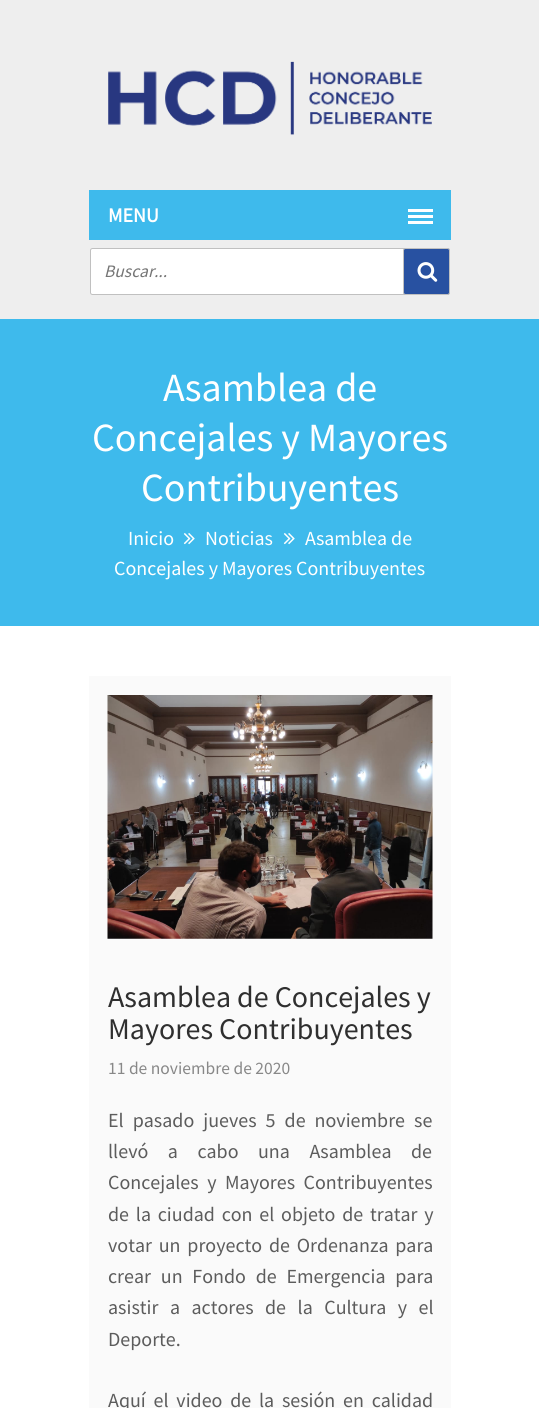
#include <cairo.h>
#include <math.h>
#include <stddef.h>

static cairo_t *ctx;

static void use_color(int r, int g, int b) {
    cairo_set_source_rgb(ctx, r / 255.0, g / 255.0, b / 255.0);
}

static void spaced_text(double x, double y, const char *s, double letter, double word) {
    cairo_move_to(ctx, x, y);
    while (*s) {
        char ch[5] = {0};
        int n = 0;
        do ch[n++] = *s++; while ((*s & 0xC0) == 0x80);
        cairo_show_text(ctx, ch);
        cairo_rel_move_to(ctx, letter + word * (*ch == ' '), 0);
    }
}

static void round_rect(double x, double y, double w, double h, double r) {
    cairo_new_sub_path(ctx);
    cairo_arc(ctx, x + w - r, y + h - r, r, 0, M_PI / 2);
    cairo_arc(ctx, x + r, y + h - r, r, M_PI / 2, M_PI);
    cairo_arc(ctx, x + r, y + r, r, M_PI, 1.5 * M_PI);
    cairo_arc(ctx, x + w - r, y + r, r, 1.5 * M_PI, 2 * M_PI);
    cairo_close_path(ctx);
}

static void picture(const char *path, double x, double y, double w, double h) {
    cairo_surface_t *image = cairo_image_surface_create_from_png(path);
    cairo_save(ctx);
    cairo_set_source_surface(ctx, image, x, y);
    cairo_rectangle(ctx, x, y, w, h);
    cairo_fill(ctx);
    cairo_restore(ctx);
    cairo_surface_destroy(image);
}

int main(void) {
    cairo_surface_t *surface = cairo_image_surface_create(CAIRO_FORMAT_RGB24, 539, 1408);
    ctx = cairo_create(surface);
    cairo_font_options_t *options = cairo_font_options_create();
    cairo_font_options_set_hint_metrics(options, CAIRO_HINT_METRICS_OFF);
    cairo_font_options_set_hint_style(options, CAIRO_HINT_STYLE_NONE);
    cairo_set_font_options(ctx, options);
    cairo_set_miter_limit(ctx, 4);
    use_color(255, 255, 255);
    cairo_paint(ctx);
    use_color(238, 238, 238);
    cairo_rectangle(ctx, 0, 0, 539, 319);
    cairo_fill(ctx);
    picture("img1.png", 108, 61, 324, 74);
    use_color(62, 186, 236);
    cairo_rectangle(ctx, 89, 190, 362, 50);
    cairo_fill(ctx);
    cairo_select_font_face(ctx, "Source Sans Pro", CAIRO_FONT_SLANT_NORMAL, CAIRO_FONT_WEIGHT_BOLD);
    cairo_set_font_size(ctx, 20);
    use_color(255, 255, 255);
    cairo_move_to(ctx, 108, 222);
    cairo_show_text(ctx, "MENU");
    cairo_rectangle(ctx, 408, 215, 25, 3);
    cairo_fill(ctx);
    cairo_rectangle(ctx, 408, 209, 25, 3);
    cairo_fill(ctx);
    cairo_rectangle(ctx, 408, 221, 25, 3);
    cairo_fill(ctx);
    round_rect(90.5, 248.5, 359, 46, 2);
    cairo_fill_preserve(ctx);
    use_color(192, 192, 192);
    cairo_set_line_width(ctx, 1);
    cairo_stroke(ctx);
    cairo_select_font_face(ctx, "Source Sans Pro", CAIRO_FONT_SLANT_ITALIC, CAIRO_FONT_WEIGHT_NORMAL);
    cairo_set_font_size(ctx, 17.5);
    use_color(117, 117, 117);
    cairo_move_to(ctx, 104, 277);
    cairo_show_text(ctx, "Buscar...");
    use_color(40, 81, 161);
    round_rect(403.5, 248.5, 46, 46, 2);
    cairo_fill_preserve(ctx);
    use_color(192, 192, 192);
    cairo_stroke(ctx);
    picture("img2.png", 417, 262, 21, 20);
    use_color(62, 186, 236);
    cairo_rectangle(ctx, 0, 319, 539, 307);
    cairo_fill(ctx);
    cairo_select_font_face(ctx, "Source Sans Pro", CAIRO_FONT_SLANT_NORMAL, CAIRO_FONT_WEIGHT_NORMAL);
    cairo_set_font_size(ctx, 40);
    use_color(255, 255, 255);
    cairo_move_to(ctx, 163, 401);
    cairo_show_text(ctx, "Asamblea de");
    cairo_move_to(ctx, 92, 451);
    cairo_show_text(ctx, "Concejales y Mayores");
    cairo_move_to(ctx, 141, 501);
    cairo_show_text(ctx, "Contribuyentes");
    cairo_set_font_size(ctx, 20);
    cairo_move_to(ctx, 128, 545);
    cairo_show_text(ctx, "Inicio");
    picture("img3.png", 183, 533, 12, 12);
    cairo_move_to(ctx, 205, 545);
    cairo_show_text(ctx, "Noticias");
    picture("img3.png", 283, 533, 12, 12);
    cairo_move_to(ctx, 305, 545);
    cairo_show_text(ctx, "Asamblea de");
    cairo_move_to(ctx, 114, 575);
    cairo_show_text(ctx, "Concejales y Mayores Contribuyentes");
    use_color(250, 250, 250);
    cairo_rectangle(ctx, 89, 676, 362, 732);
    cairo_fill(ctx);
    picture("img4.png", 107, 695, 326, 244);
    cairo_set_font_size(ctx, 30);
    use_color(47, 47, 47);
    cairo_move_to(ctx, 108, 1007);
    cairo_show_text(ctx, "Asamblea de Concejales y");
    cairo_move_to(ctx, 108, 1039);
    cairo_show_text(ctx, "Mayores Contribuyentes");
    cairo_set_font_size(ctx, 17.5);
    use_color(136, 136, 136);
    cairo_move_to(ctx, 108, 1074);
    cairo_show_text(ctx, "11 de noviembre de 2020");
    cairo_set_font_size(ctx, 20);
    use_color(92, 92, 92);
    spaced_text(108, 1127, "El pasado jueves 5 de noviembre se", 0, 5);
    spaced_text(108, 1158, "llevó a cabo una Asamblea de", 0, 15.5);
    spaced_text(108, 1189, "Concejales y Mayores Contribuyentes", 0, 4.5);
    spaced_text(108, 1221, "de la ciudad con el objeto de tratar y", 0, 2.75);
    spaced_text(108, 1252, "votar un proyecto de Ordenanza para", 0, 2.75);
    spaced_text(108, 1283, "crear un Fondo de Emergencia para", 0, 5.75);
    spaced_text(108, 1314, "asistir a actores de la Cultura y el", 0, 7.5);
    cairo_move_to(ctx, 108, 1346);
    cairo_show_text(ctx, "Deporte.");
    spaced_text(108, 1407, "Aquí el video de la sesión en calidad", 0, 3.75);
    cairo_surface_write_to_png(surface, "result.png");
    cairo_font_options_destroy(options);
    cairo_destroy(ctx);
    cairo_surface_destroy(surface);
    return 0;
}
